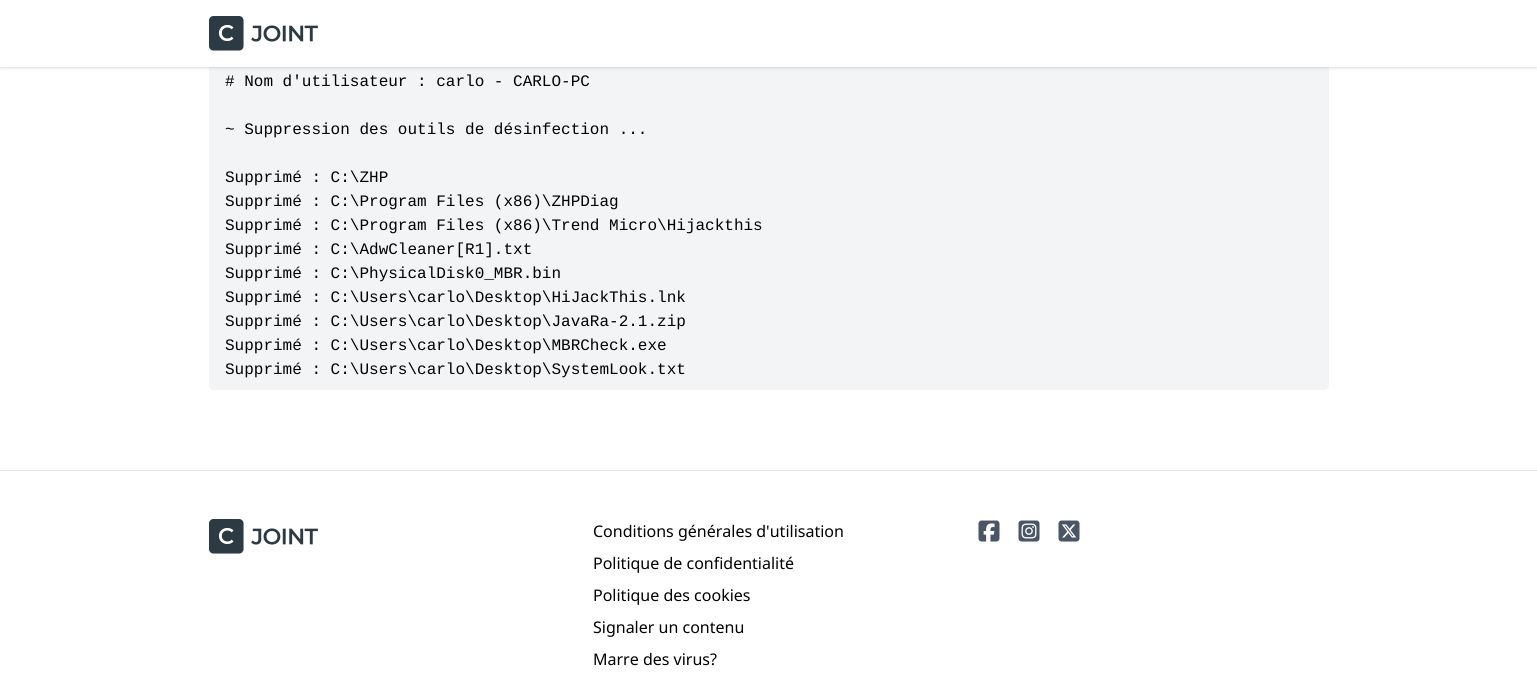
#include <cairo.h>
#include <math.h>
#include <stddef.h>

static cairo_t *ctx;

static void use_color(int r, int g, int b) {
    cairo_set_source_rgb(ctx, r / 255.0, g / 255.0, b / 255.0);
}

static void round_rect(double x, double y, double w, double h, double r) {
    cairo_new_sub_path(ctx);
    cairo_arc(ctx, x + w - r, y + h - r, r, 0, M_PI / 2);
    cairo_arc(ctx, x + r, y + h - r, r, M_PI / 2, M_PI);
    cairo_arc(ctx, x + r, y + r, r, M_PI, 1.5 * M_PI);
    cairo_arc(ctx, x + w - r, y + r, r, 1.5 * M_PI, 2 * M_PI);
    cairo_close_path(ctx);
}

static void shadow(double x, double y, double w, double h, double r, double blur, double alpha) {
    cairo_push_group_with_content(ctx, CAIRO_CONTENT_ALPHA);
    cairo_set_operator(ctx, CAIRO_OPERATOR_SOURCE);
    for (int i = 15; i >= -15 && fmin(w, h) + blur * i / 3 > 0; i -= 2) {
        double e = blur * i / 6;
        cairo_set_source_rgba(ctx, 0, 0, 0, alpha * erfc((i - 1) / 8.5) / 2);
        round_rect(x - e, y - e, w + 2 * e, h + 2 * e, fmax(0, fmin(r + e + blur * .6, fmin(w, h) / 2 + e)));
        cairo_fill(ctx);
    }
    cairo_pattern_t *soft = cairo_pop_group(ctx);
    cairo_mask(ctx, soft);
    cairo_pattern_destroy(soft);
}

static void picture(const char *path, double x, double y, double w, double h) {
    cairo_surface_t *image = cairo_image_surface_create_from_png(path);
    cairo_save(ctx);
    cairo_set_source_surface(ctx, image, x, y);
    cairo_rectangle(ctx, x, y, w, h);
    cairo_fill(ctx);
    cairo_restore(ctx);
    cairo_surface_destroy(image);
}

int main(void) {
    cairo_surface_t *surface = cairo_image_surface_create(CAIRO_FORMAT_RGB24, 1537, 693);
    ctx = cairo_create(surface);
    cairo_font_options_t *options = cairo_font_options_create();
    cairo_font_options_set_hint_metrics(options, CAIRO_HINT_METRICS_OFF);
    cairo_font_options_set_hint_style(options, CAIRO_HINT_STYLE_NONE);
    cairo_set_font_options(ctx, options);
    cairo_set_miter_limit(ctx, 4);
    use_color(255, 255, 255);
    cairo_paint(ctx);
    use_color(243, 244, 246);
    round_rect(209, 6, 1120, 384, 4);
    cairo_fill(ctx);
    use_color(0, 0, 0);
    shadow(1, 2, 1535, 65, 0, 1, 0.1);
    shadow(0, 1, 1537, 67, 0, 1.5, 0.1);
    use_color(255, 255, 255);
    cairo_rectangle(ctx, 0, 0, 1537, 67);
    cairo_fill(ctx);
    picture("img1.png", 209, 16, 109, 35);
    cairo_select_font_face(ctx, "Liberation Mono", CAIRO_FONT_SLANT_NORMAL, CAIRO_FONT_WEIGHT_NORMAL);
    cairo_set_font_size(ctx, 16);
    use_color(0, 0, 0);
    cairo_move_to(ctx, 225, 86);
    cairo_show_text(ctx, "# Nom d'utilisateur : carlo - CARLO-PC");
    cairo_move_to(ctx, 225, 134);
    cairo_show_text(ctx, "~ Suppression des outils de désinfection ...");
    cairo_move_to(ctx, 225, 182);
    cairo_show_text(ctx, "Supprimé : C:\\ZHP");
    cairo_move_to(ctx, 225, 206);
    cairo_show_text(ctx, "Supprimé : C:\\Program Files (x86)\\ZHPDiag");
    cairo_move_to(ctx, 225, 230);
    cairo_show_text(ctx, "Supprimé : C:\\Program Files (x86)\\Trend Micro\\Hijackthis");
    cairo_move_to(ctx, 225, 254);
    cairo_show_text(ctx, "Supprimé : C:\\AdwCleaner[R1].txt");
    cairo_move_to(ctx, 225, 278);
    cairo_show_text(ctx, "Supprimé : C:\\PhysicalDisk0_MBR.bin");
    cairo_move_to(ctx, 225, 302);
    cairo_show_text(ctx, "Supprimé : C:\\Users\\carlo\\Desktop\\HiJackThis.lnk");
    cairo_move_to(ctx, 225, 326);
    cairo_show_text(ctx, "Supprimé : C:\\Users\\carlo\\Desktop\\JavaRa-2.1.zip");
    cairo_move_to(ctx, 225, 350);
    cairo_show_text(ctx, "Supprimé : C:\\Users\\carlo\\Desktop\\MBRCheck.exe");
    cairo_move_to(ctx, 225, 374);
    cairo_show_text(ctx, "Supprimé : C:\\Users\\carlo\\Desktop\\SystemLook.txt");
    use_color(229, 231, 235);
    cairo_rectangle(ctx, 0, 470, 1537, 1);
    cairo_fill(ctx);
    picture("img1.png", 209, 519, 109, 35);
    cairo_select_font_face(ctx, "Noto Sans", CAIRO_FONT_SLANT_NORMAL, CAIRO_FONT_WEIGHT_NORMAL);
    use_color(0, 0, 0);
    cairo_move_to(ctx, 593, 537);
    cairo_show_text(ctx, "Conditions générales d'utilisation");
    cairo_move_to(ctx, 593, 569);
    cairo_show_text(ctx, "Politique de confidentialité");
    cairo_move_to(ctx, 593, 601);
    cairo_show_text(ctx, "Politique des cookies");
    cairo_move_to(ctx, 593, 633);
    cairo_show_text(ctx, "Signaler un contenu");
    cairo_move_to(ctx, 593, 665);
    cairo_show_text(ctx, "Marre des virus?");
    picture("img2.png", 978, 520, 22, 22);
    picture("img3.png", 1018, 520, 22, 22);
    picture("img4.png", 1058, 520, 22, 22);
    cairo_surface_write_to_png(surface, "result.png");
    cairo_font_options_destroy(options);
    cairo_destroy(ctx);
    cairo_surface_destroy(surface);
    return 0;
}
